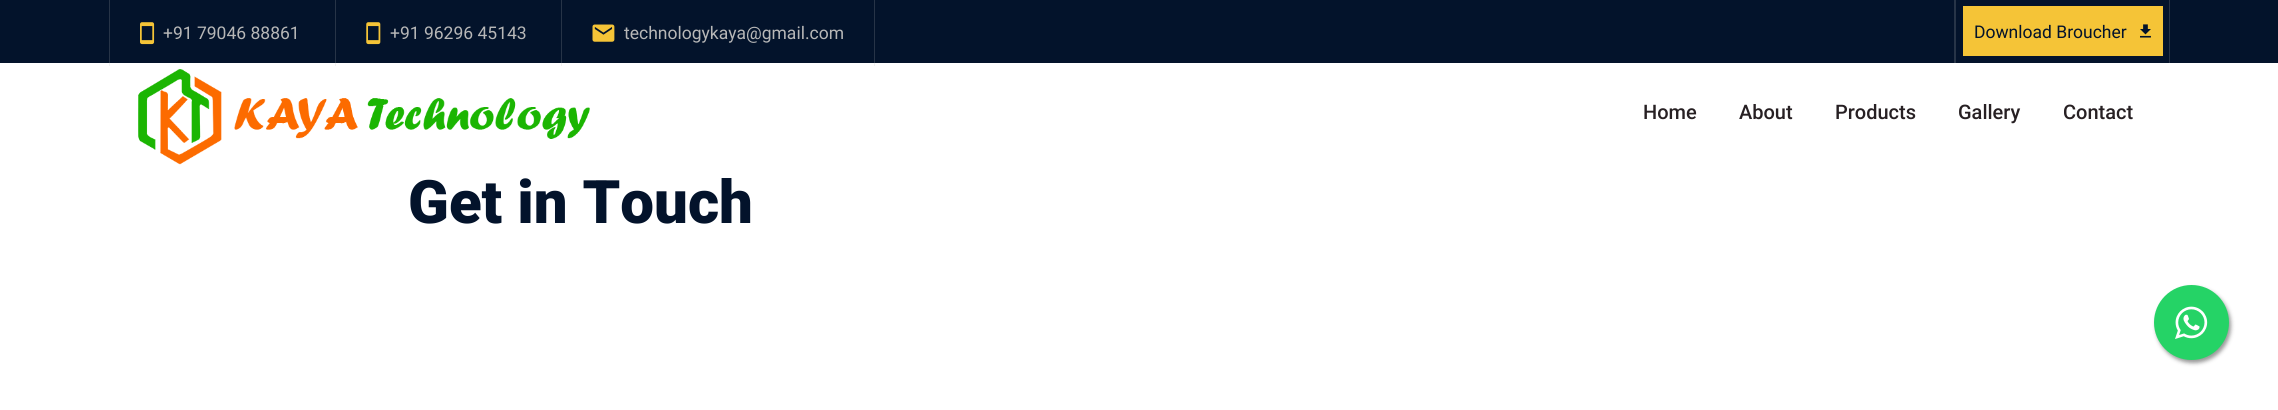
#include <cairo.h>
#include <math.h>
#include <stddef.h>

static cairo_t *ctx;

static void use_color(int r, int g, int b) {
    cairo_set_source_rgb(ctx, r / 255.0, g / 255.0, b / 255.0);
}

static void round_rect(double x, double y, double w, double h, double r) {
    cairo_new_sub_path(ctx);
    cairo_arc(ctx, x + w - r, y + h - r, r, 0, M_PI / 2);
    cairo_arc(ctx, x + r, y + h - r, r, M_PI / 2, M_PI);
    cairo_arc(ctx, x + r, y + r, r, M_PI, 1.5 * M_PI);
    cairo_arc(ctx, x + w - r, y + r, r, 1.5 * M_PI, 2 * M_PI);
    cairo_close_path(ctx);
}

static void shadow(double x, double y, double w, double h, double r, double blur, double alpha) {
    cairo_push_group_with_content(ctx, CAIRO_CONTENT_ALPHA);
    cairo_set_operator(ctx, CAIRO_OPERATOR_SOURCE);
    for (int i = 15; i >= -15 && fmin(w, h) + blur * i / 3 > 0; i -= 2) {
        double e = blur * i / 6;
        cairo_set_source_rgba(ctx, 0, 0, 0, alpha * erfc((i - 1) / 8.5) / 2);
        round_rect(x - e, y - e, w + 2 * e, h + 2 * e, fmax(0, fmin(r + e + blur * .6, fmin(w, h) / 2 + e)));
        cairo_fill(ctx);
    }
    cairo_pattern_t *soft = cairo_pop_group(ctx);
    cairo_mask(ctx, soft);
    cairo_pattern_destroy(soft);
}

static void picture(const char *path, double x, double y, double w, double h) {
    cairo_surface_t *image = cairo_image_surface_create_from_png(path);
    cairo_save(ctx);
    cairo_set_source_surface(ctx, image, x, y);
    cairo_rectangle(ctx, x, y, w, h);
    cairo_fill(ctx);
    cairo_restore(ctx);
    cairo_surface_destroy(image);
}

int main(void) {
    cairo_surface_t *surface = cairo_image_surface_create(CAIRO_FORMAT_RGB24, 2278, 410);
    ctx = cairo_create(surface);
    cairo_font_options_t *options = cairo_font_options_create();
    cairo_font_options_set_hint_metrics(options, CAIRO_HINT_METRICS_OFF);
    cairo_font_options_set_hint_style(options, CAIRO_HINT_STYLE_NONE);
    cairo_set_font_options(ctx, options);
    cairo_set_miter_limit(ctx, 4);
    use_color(255, 255, 255);
    cairo_paint(ctx);
    use_color(241, 241, 241);
    cairo_rectangle(ctx, 561, 63, 1, 3);
    cairo_fill(ctx);
    cairo_rectangle(ctx, 874, 63, 1, 3);
    cairo_fill(ctx);
    cairo_rectangle(ctx, 335, 63, 1, 3);
    cairo_fill(ctx);
    cairo_rectangle(ctx, 109, 63, 1, 3);
    cairo_fill(ctx);
    use_color(3, 19, 43);
    cairo_rectangle(ctx, 0, 0, 2278, 63);
    cairo_fill(ctx);
    use_color(39, 52, 71);
    cairo_rectangle(ctx, 561, 0, 1, 63);
    cairo_fill(ctx);
    cairo_rectangle(ctx, 874, 0, 1, 63);
    cairo_fill(ctx);
    cairo_rectangle(ctx, 335, 0, 1, 63);
    cairo_fill(ctx);
    cairo_rectangle(ctx, 109, 0, 1, 63);
    cairo_fill(ctx);
    picture("img1.png", 140, 22, 15, 23);
    cairo_select_font_face(ctx, "Roboto", CAIRO_FONT_SLANT_NORMAL, CAIRO_FONT_WEIGHT_NORMAL);
    cairo_set_font_size(ctx, 17.5);
    use_color(183, 183, 183);
    cairo_move_to(ctx, 163, 39);
    cairo_show_text(ctx, "+91 79046 88861");
    picture("img2.png", 366, 22, 15, 23);
    cairo_move_to(ctx, 390, 39);
    cairo_show_text(ctx, "+91 96296 45143");
    picture("img3.png", 592, 24, 23, 18);
    cairo_move_to(ctx, 624, 39);
    cairo_show_text(ctx, "technologykaya@gmail.com");
    use_color(39, 52, 71);
    cairo_rectangle(ctx, 1954, 0, 2, 63);
    cairo_fill(ctx);
    cairo_rectangle(ctx, 2169, 0, 1, 63);
    cairo_fill(ctx);
    use_color(245, 196, 55);
    cairo_rectangle(ctx, 1963, 6, 200, 50);
    cairo_fill(ctx);
    use_color(3, 19, 43);
    cairo_move_to(ctx, 1974, 38);
    cairo_show_text(ctx, "Download Broucher");
    picture("img4.png", 2140, 24, 11, 14);
    picture("img5.png", 138, 69, 452, 96);
    cairo_select_font_face(ctx, "Roboto Medium", CAIRO_FONT_SLANT_NORMAL, CAIRO_FONT_WEIGHT_NORMAL);
    cairo_set_font_size(ctx, 20);
    use_color(39, 32, 35);
    cairo_move_to(ctx, 1643, 119);
    cairo_show_text(ctx, "Home");
    cairo_move_to(ctx, 1739, 119);
    cairo_show_text(ctx, "About");
    cairo_move_to(ctx, 1835, 119);
    cairo_show_text(ctx, "Products");
    cairo_move_to(ctx, 1958, 119);
    cairo_show_text(ctx, "Gallery");
    cairo_move_to(ctx, 2063, 119);
    cairo_show_text(ctx, "Contact");
    cairo_select_font_face(ctx, "Roboto Black", CAIRO_FONT_SLANT_NORMAL, CAIRO_FONT_WEIGHT_NORMAL);
    cairo_set_font_size(ctx, 60);
    use_color(3, 19, 43);
    cairo_move_to(ctx, 408, 223);
    cairo_show_text(ctx, "Get in Touch");
    use_color(153, 153, 153);
    shadow(2156, 288, 75, 75, 37.5, 2, 1);
    use_color(37, 211, 102);
    cairo_arc(ctx, 2191.5, 322.5, 37.5, 0, 2 * M_PI);
    cairo_fill(ctx);
    picture("img6.png", 2175, 306, 33, 33);
    cairo_surface_write_to_png(surface, "result.png");
    cairo_font_options_destroy(options);
    cairo_destroy(ctx);
    cairo_surface_destroy(surface);
    return 0;
}
